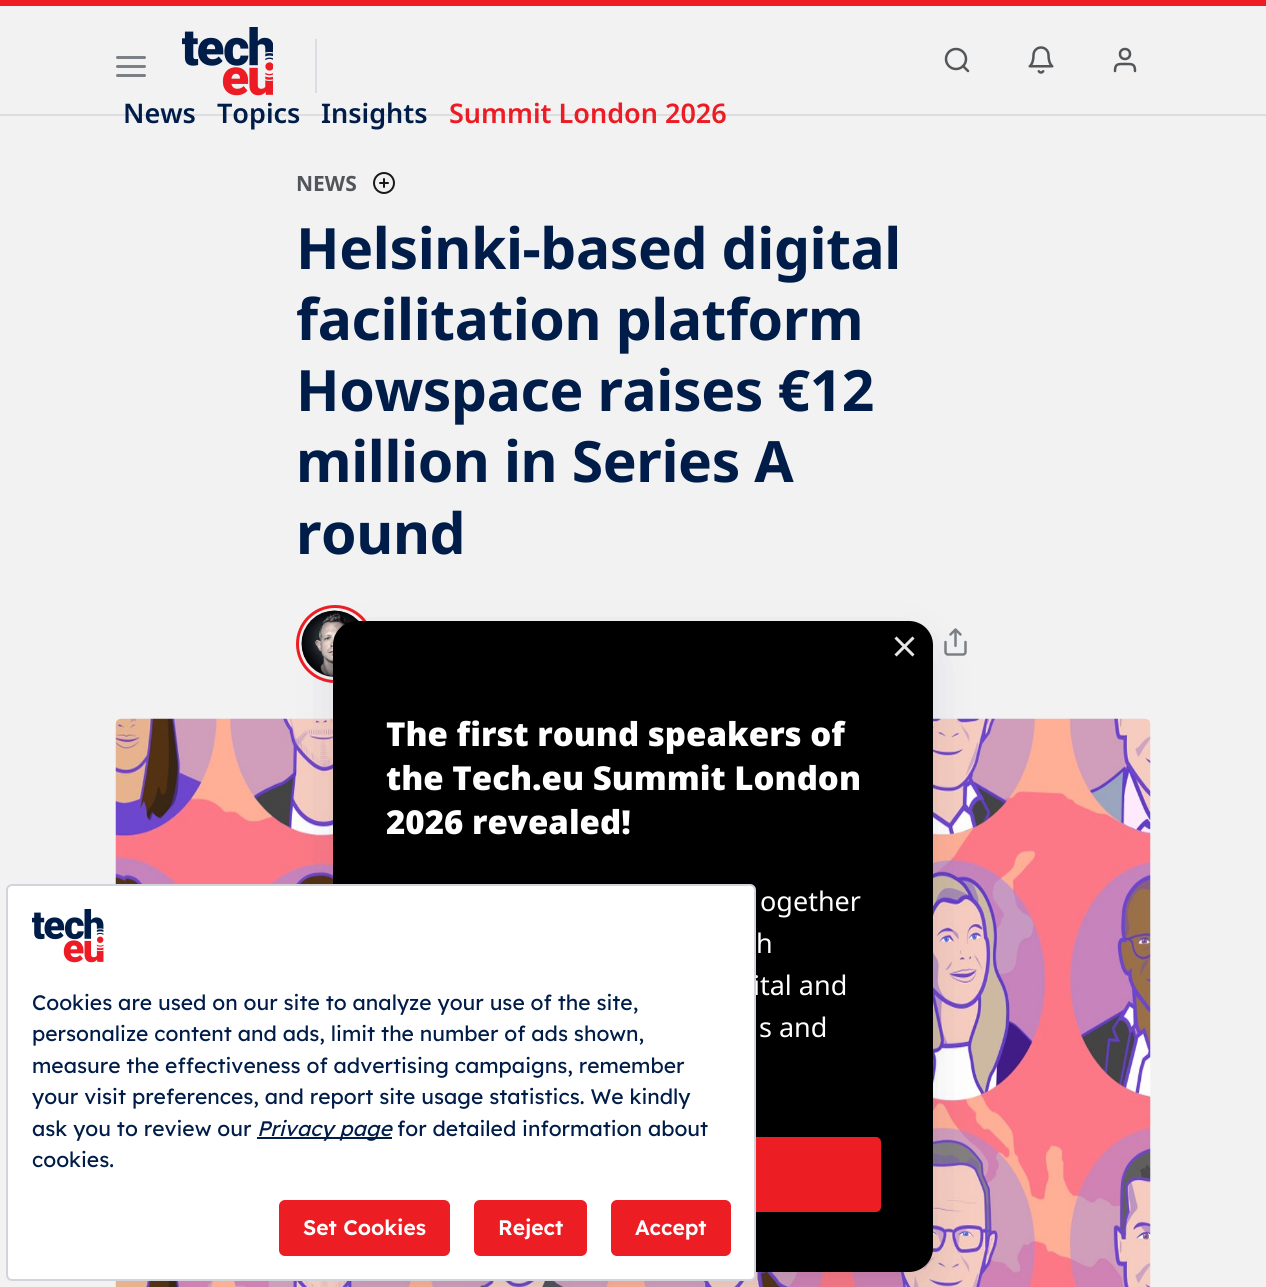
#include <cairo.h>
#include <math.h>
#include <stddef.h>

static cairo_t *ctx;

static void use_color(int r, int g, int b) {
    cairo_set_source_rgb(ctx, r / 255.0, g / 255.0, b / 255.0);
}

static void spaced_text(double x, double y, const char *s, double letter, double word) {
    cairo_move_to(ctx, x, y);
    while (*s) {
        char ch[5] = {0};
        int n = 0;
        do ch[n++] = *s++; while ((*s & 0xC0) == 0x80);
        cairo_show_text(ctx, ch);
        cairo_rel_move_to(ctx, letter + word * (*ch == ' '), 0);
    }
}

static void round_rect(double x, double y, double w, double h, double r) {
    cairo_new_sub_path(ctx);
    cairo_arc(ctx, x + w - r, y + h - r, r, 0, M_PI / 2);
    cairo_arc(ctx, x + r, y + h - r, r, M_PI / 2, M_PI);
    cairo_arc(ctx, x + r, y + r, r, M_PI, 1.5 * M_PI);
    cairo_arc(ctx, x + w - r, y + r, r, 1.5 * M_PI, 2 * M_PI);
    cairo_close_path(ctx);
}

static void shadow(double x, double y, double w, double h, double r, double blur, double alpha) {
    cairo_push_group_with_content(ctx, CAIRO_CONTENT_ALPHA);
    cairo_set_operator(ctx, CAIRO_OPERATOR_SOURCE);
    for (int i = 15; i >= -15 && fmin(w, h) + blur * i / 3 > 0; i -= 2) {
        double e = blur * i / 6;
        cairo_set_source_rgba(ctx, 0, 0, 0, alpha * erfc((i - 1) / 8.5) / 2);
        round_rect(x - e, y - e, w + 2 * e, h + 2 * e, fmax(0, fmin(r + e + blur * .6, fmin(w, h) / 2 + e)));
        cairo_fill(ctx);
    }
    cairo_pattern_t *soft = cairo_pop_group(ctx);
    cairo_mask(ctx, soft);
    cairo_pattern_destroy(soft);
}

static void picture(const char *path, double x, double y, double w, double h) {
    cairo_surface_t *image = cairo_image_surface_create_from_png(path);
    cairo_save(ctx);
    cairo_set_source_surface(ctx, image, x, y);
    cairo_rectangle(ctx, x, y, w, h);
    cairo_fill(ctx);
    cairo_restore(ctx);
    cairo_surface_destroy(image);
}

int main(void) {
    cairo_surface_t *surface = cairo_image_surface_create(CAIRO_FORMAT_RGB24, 1266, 1287);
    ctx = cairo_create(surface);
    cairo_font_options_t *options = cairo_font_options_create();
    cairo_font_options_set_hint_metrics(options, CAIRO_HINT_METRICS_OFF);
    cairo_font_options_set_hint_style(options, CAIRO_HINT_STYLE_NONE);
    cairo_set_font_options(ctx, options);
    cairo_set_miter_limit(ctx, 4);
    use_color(242, 242, 243);
    cairo_paint(ctx);
    use_color(220, 221, 223);
    cairo_rectangle(ctx, 0, 114, 1266, 2);
    cairo_fill(ctx);
    use_color(237, 29, 36);
    cairo_rectangle(ctx, 0, 0, 1266, 6);
    cairo_fill(ctx);
    cairo_arc(ctx, 956, 59, 10, 0, 2 * M_PI);
    use_color(82, 86, 89);
    cairo_set_line_width(ctx, 2.5);
    cairo_stroke(ctx);
    cairo_new_path(ctx);
    cairo_move_to(ctx, 968, 71);
    cairo_line_to(ctx, 963, 66);
    cairo_set_line_cap(ctx, CAIRO_LINE_CAP_ROUND);
    cairo_set_line_join(ctx, CAIRO_LINE_JOIN_ROUND);
    cairo_stroke(ctx);
    picture("img1.png", 1028, 46, 26, 28);
    cairo_new_path(ctx);
    cairo_move_to(ctx, 1135, 71);
    cairo_curve_to(ctx, 1135, 63.5, 1132, 64, 1125, 64);
    cairo_curve_to(ctx, 1118, 64, 1115, 63.5, 1115, 71);
    cairo_stroke(ctx);
    cairo_arc(ctx, 1125, 54, 5, 0, 2 * M_PI);
    cairo_set_line_cap(ctx, CAIRO_LINE_CAP_BUTT);
    cairo_set_line_join(ctx, CAIRO_LINE_JOIN_MITER);
    cairo_stroke(ctx);
    use_color(122, 128, 133);
    round_rect(116, 56, 30, 3, 1.5);
    cairo_fill(ctx);
    round_rect(116, 65, 30, 3, 1.5);
    cairo_fill(ctx);
    round_rect(116, 74, 30, 3, 1.5);
    cairo_fill(ctx);
    picture("img2.png", 182, 27, 91, 69);
    use_color(218, 221, 226);
    cairo_rectangle(ctx, 315, 39, 2, 54);
    cairo_fill(ctx);
    cairo_select_font_face(ctx, "Noto Sans SemiBold", CAIRO_FONT_SLANT_NORMAL, CAIRO_FONT_WEIGHT_NORMAL);
    cairo_set_font_size(ctx, 27);
    use_color(0, 28, 72);
    cairo_move_to(ctx, 123, 123);
    cairo_show_text(ctx, "News");
    cairo_move_to(ctx, 217, 123);
    cairo_show_text(ctx, "Topics");
    cairo_move_to(ctx, 321, 123);
    cairo_show_text(ctx, "Insights");
    use_color(237, 28, 36);
    cairo_move_to(ctx, 449, 123);
    cairo_show_text(ctx, "Summit London 2026");
    cairo_select_font_face(ctx, "Noto Sans", CAIRO_FONT_SLANT_NORMAL, CAIRO_FONT_WEIGHT_BOLD);
    cairo_set_font_size(ctx, 21);
    use_color(82, 86, 89);
    cairo_move_to(ctx, 296, 191);
    cairo_show_text(ctx, "NEWS");
    picture("img3.png", 373, 172, 22, 22);
    cairo_set_font_size(ctx, 57);
    use_color(0, 28, 72);
    spaced_text(296, 269, "Helsinki-based digital", -0.4, 0);
    spaced_text(296, 340, "facilitation platform", -0.4, 0);
    spaced_text(296, 411, "Howspace raises €12", -0.4, 0);
    spaced_text(296, 482, "million in Series A", -0.4, 0);
    spaced_text(296, 554, "round", -0.4, 0);
    cairo_new_path(ctx);
    cairo_arc(ctx, 335, 644, 37.5, 0, 2 * M_PI);
    use_color(237, 29, 36);
    cairo_set_line_width(ctx, 3);
    cairo_stroke(ctx);
    use_color(102, 102, 102);
    cairo_arc(ctx, 335, 644, 33, 0, 2 * M_PI);
    cairo_fill(ctx);
    picture("img4.png", 301, 610, 58, 67);
    picture("img5.png", 944, 628, 23, 28);
    picture("img6.png", 115, 718, 1036, 569);
    use_color(54, 61, 77);
    shadow(341, 645, 585, 636, 17, 24, 0.15);
    use_color(0, 0, 0);
    round_rect(333, 621, 600, 651, 24);
    cairo_fill(ctx);
    cairo_new_path(ctx);
    cairo_move_to(ctx, 895.5, 637.5);
    cairo_line_to(ctx, 904.5, 646.5);
    cairo_line_to(ctx, 913.5, 637.5);
    cairo_move_to(ctx, 913.5, 655.5);
    cairo_line_to(ctx, 904.5, 646.5);
    cairo_line_to(ctx, 895.5, 655.5);
    use_color(230, 230, 230);
    cairo_stroke(ctx);
    cairo_select_font_face(ctx, "Noto Sans Black", CAIRO_FONT_SLANT_NORMAL, CAIRO_FONT_WEIGHT_NORMAL);
    cairo_set_font_size(ctx, 33);
    use_color(255, 255, 255);
    cairo_move_to(ctx, 386, 746);
    cairo_show_text(ctx, "The first round speakers of");
    cairo_move_to(ctx, 386, 790);
    cairo_show_text(ctx, "the Tech.eu Summit London");
    cairo_move_to(ctx, 386, 834);
    cairo_show_text(ctx, "2026 revealed!");
    cairo_select_font_face(ctx, "Noto Sans", CAIRO_FONT_SLANT_NORMAL, CAIRO_FONT_WEIGHT_NORMAL);
    cairo_set_font_size(ctx, 27);
    cairo_move_to(ctx, 760, 911);
    cairo_show_text(ctx, "ogether");
    cairo_move_to(ctx, 756, 953);
    cairo_show_text(ctx, "h");
    cairo_move_to(ctx, 753, 995);
    cairo_show_text(ctx, "ital and");
    cairo_move_to(ctx, 759, 1037);
    cairo_show_text(ctx, "s and");
    use_color(237, 29, 36);
    round_rect(386, 1137, 495, 75, 5);
    cairo_fill(ctx);
    use_color(255, 255, 255);
    round_rect(7, 885, 748, 395, 5);
    cairo_fill_preserve(ctx);
    use_color(209, 213, 219);
    cairo_set_line_width(ctx, 2);
    cairo_stroke(ctx);
    picture("img7.png", 32, 909, 72, 54);
    cairo_select_font_face(ctx, "Lexend Deca", CAIRO_FONT_SLANT_NORMAL, CAIRO_FONT_WEIGHT_NORMAL);
    cairo_set_font_size(ctx, 21);
    use_color(0, 28, 72);
    cairo_move_to(ctx, 32, 1010);
    cairo_show_text(ctx, "Cookies are used on our site to analyze your use of the site,");
    cairo_move_to(ctx, 32, 1041);
    cairo_show_text(ctx, "personalize content and ads, limit the number of ads shown,");
    cairo_move_to(ctx, 32, 1073);
    cairo_show_text(ctx, "measure the effectiveness of advertising campaigns, remember");
    cairo_move_to(ctx, 32, 1104);
    cairo_show_text(ctx, "your visit preferences, and report site usage statistics. We kindly");
    cairo_move_to(ctx, 32, 1136);
    cairo_show_text(ctx, "ask you to review our");
    cairo_rectangle(ctx, 257, 1137, 135, 2);
    cairo_fill(ctx);
    cairo_select_font_face(ctx, "Lexend Deca", CAIRO_FONT_SLANT_ITALIC, CAIRO_FONT_WEIGHT_NORMAL);
    cairo_move_to(ctx, 257, 1136);
    cairo_show_text(ctx, "Privacy page");
    cairo_select_font_face(ctx, "Lexend Deca", CAIRO_FONT_SLANT_NORMAL, CAIRO_FONT_WEIGHT_NORMAL);
    cairo_move_to(ctx, 397, 1136);
    cairo_show_text(ctx, "for detailed information about");
    cairo_move_to(ctx, 32, 1167);
    cairo_show_text(ctx, "cookies.");
    use_color(237, 29, 36);
    round_rect(279, 1200, 171, 56, 6);
    cairo_fill(ctx);
    cairo_select_font_face(ctx, "Lexend Deca SemiBold", CAIRO_FONT_SLANT_NORMAL, CAIRO_FONT_WEIGHT_NORMAL);
    use_color(255, 255, 255);
    cairo_move_to(ctx, 303, 1235);
    cairo_show_text(ctx, "Set Cookies");
    use_color(237, 29, 36);
    round_rect(474, 1200, 113, 56, 6);
    cairo_fill(ctx);
    use_color(255, 255, 255);
    cairo_move_to(ctx, 498, 1235);
    cairo_show_text(ctx, "Reject");
    use_color(237, 29, 36);
    round_rect(611, 1200, 120, 56, 6);
    cairo_fill(ctx);
    use_color(255, 255, 255);
    cairo_move_to(ctx, 635, 1235);
    cairo_show_text(ctx, "Accept");
    cairo_surface_write_to_png(surface, "result.png");
    cairo_font_options_destroy(options);
    cairo_destroy(ctx);
    cairo_surface_destroy(surface);
    return 0;
}
